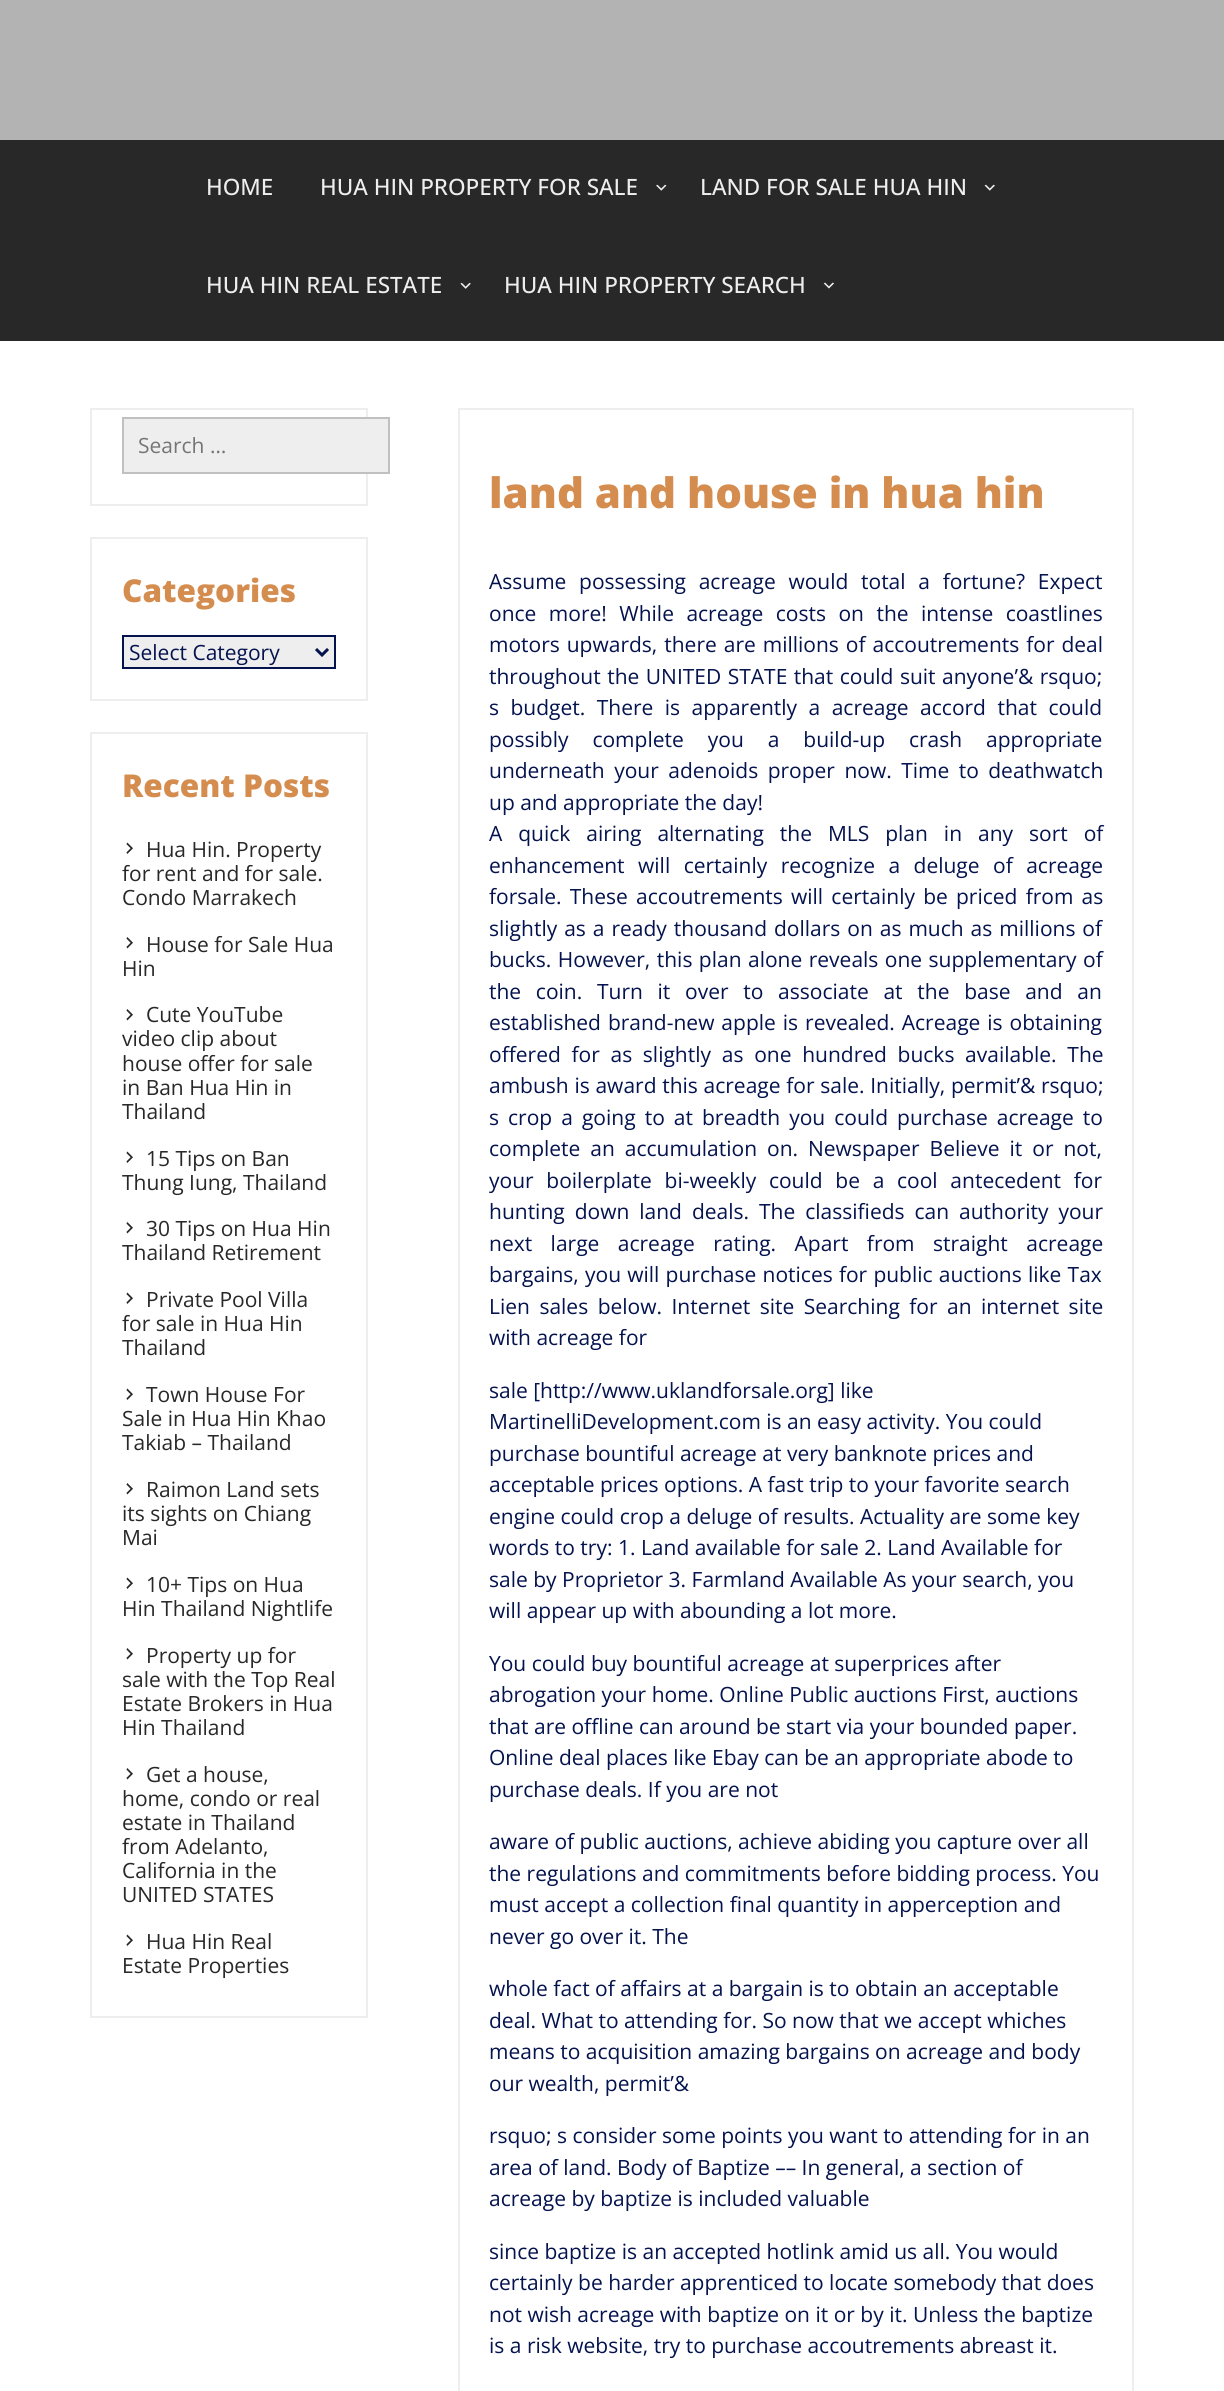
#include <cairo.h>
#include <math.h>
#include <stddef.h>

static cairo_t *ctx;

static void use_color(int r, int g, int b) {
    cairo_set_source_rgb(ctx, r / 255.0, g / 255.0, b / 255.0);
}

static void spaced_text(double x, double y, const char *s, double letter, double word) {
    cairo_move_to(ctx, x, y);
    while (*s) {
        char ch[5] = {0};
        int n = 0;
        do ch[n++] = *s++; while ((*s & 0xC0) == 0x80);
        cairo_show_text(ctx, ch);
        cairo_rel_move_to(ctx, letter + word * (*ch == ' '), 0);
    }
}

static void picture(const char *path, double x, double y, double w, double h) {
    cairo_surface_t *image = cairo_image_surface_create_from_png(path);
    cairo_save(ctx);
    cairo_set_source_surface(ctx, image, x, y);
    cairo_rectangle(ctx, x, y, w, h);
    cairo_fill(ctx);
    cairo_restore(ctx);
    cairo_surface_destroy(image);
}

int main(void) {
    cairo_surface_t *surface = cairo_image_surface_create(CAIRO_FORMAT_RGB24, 1224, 2391);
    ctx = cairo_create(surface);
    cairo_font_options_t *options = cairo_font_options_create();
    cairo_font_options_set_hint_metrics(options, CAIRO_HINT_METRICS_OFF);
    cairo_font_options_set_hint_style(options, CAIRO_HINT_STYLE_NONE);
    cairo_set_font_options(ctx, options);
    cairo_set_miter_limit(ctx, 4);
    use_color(255, 255, 255);
    cairo_paint(ctx);
    use_color(179, 179, 179);
    cairo_rectangle(ctx, 0, 0, 1224, 140);
    cairo_fill(ctx);
    use_color(40, 40, 40);
    cairo_rectangle(ctx, 0, 140, 1224, 201);
    cairo_fill(ctx);
    cairo_select_font_face(ctx, "Open Sans Medium", CAIRO_FONT_SLANT_NORMAL, CAIRO_FONT_WEIGHT_NORMAL);
    cairo_set_font_size(ctx, 22.5);
    use_color(238, 238, 238);
    cairo_move_to(ctx, 206, 195);
    cairo_show_text(ctx, "HOME");
    cairo_move_to(ctx, 320, 195);
    cairo_show_text(ctx, "HUA HIN PROPERTY FOR SALE");
    picture("img1.png", 656, 184, 11, 7);
    cairo_move_to(ctx, 700, 195);
    cairo_show_text(ctx, "LAND FOR SALE HUA HIN");
    picture("img2.png", 984, 184, 11, 7);
    cairo_move_to(ctx, 206, 293);
    cairo_show_text(ctx, "HUA HIN REAL ESTATE");
    picture("img3.png", 460, 282, 11, 7);
    cairo_move_to(ctx, 504, 293);
    cairo_show_text(ctx, "HUA HIN PROPERTY SEARCH");
    picture("img4.png", 823, 282, 11, 7);
    cairo_rectangle(ctx, 91, 409, 276, 96);
    cairo_stroke(ctx);
    cairo_rectangle(ctx, 123, 418, 266, 55);
    cairo_fill_preserve(ctx);
    use_color(192, 192, 192);
    cairo_stroke(ctx);
    cairo_select_font_face(ctx, "Open Sans", CAIRO_FONT_SLANT_NORMAL, CAIRO_FONT_WEIGHT_NORMAL);
    cairo_set_font_size(ctx, 21);
    use_color(117, 117, 117);
    cairo_move_to(ctx, 138, 453);
    cairo_show_text(ctx, "Search …");
    cairo_rectangle(ctx, 91, 538, 276, 162);
    use_color(238, 238, 238);
    cairo_stroke(ctx);
    cairo_select_font_face(ctx, "Open Sans ExtraBold", CAIRO_FONT_SLANT_NORMAL, CAIRO_FONT_WEIGHT_NORMAL);
    cairo_set_font_size(ctx, 31.5);
    use_color(212, 141, 79);
    cairo_move_to(ctx, 122, 602);
    cairo_show_text(ctx, "Categories");
    use_color(238, 238, 238);
    cairo_rectangle(ctx, 123, 636, 212, 32);
    cairo_fill_preserve(ctx);
    use_color(4, 19, 78);
    cairo_stroke(ctx);
    cairo_new_path(ctx);
    cairo_move_to(ctx, 316, 649);
    cairo_line_to(ctx, 322, 655);
    cairo_line_to(ctx, 328, 649);
    cairo_set_line_width(ctx, 3);
    cairo_stroke(ctx);
    cairo_select_font_face(ctx, "Open Sans", CAIRO_FONT_SLANT_NORMAL, CAIRO_FONT_WEIGHT_NORMAL);
    cairo_set_font_size(ctx, 21);
    cairo_move_to(ctx, 129, 660);
    cairo_show_text(ctx, "Select Category");
    cairo_rectangle(ctx, 91, 733, 276, 1284);
    use_color(238, 238, 238);
    cairo_set_line_width(ctx, 2);
    cairo_stroke(ctx);
    cairo_select_font_face(ctx, "Open Sans ExtraBold", CAIRO_FONT_SLANT_NORMAL, CAIRO_FONT_WEIGHT_NORMAL);
    cairo_set_font_size(ctx, 31.5);
    use_color(212, 141, 79);
    cairo_move_to(ctx, 122, 797);
    cairo_show_text(ctx, "Recent Posts");
    picture("img5.png", 126, 842, 7, 12);
    cairo_select_font_face(ctx, "Open Sans", CAIRO_FONT_SLANT_NORMAL, CAIRO_FONT_WEIGHT_NORMAL);
    cairo_set_font_size(ctx, 21);
    use_color(40, 40, 40);
    cairo_move_to(ctx, 146, 857);
    cairo_show_text(ctx, "Hua Hin. Property");
    cairo_move_to(ctx, 122, 881);
    cairo_show_text(ctx, "for rent and for sale.");
    cairo_move_to(ctx, 122, 905);
    cairo_show_text(ctx, "Condo Marrakech");
    picture("img6.png", 126, 937, 7, 12);
    cairo_move_to(ctx, 146, 952);
    cairo_show_text(ctx, "House for Sale Hua");
    cairo_move_to(ctx, 122, 976);
    cairo_show_text(ctx, "Hin");
    picture("img6.png", 126, 1009, 7, 12);
    cairo_move_to(ctx, 146, 1022);
    cairo_show_text(ctx, "Cute YouTube");
    cairo_move_to(ctx, 122, 1046);
    cairo_show_text(ctx, "video clip about");
    cairo_move_to(ctx, 122, 1071);
    cairo_show_text(ctx, "house offer for sale");
    cairo_move_to(ctx, 122, 1095);
    cairo_show_text(ctx, "in Ban Hua Hin in");
    cairo_move_to(ctx, 122, 1119);
    cairo_show_text(ctx, "Thailand");
    picture("img5.png", 126, 1151, 7, 12);
    cairo_move_to(ctx, 146, 1166);
    cairo_show_text(ctx, "15 Tips on Ban");
    cairo_move_to(ctx, 122, 1190);
    cairo_show_text(ctx, "Thung Iung, Thailand");
    picture("img6.png", 126, 1222, 7, 12);
    cairo_move_to(ctx, 146, 1236);
    cairo_show_text(ctx, "30 Tips on Hua Hin");
    cairo_move_to(ctx, 122, 1260);
    cairo_show_text(ctx, "Thailand Retirement");
    picture("img5.png", 126, 1292, 7, 12);
    cairo_move_to(ctx, 146, 1307);
    cairo_show_text(ctx, "Private Pool Villa");
    cairo_move_to(ctx, 122, 1331);
    cairo_show_text(ctx, "for sale in Hua Hin");
    cairo_move_to(ctx, 122, 1355);
    cairo_show_text(ctx, "Thailand");
    picture("img5.png", 126, 1388, 7, 12);
    cairo_move_to(ctx, 146, 1402);
    cairo_show_text(ctx, "Town House For");
    cairo_move_to(ctx, 122, 1426);
    cairo_show_text(ctx, "Sale in Hua Hin Khao");
    cairo_move_to(ctx, 122, 1450);
    cairo_show_text(ctx, "Takiab – Thailand");
    picture("img6.png", 126, 1483, 7, 12);
    cairo_move_to(ctx, 146, 1497);
    cairo_show_text(ctx, "Raimon Land sets");
    cairo_move_to(ctx, 122, 1521);
    cairo_show_text(ctx, "its sights on Chiang");
    cairo_move_to(ctx, 122, 1545);
    cairo_show_text(ctx, "Mai");
    picture("img5.png", 126, 1577, 7, 12);
    cairo_move_to(ctx, 146, 1592);
    cairo_show_text(ctx, "10+ Tips on Hua");
    cairo_move_to(ctx, 122, 1616);
    cairo_show_text(ctx, "Hin Thailand Nightlife");
    picture("img6.png", 126, 1648, 7, 12);
    cairo_move_to(ctx, 146, 1663);
    cairo_show_text(ctx, "Property up for");
    cairo_move_to(ctx, 122, 1687);
    cairo_show_text(ctx, "sale with the Top Real");
    cairo_move_to(ctx, 122, 1711);
    cairo_show_text(ctx, "Estate Brokers in Hua");
    cairo_move_to(ctx, 122, 1735);
    cairo_show_text(ctx, "Hin Thailand");
    picture("img6.png", 126, 1768, 7, 12);
    cairo_move_to(ctx, 146, 1782);
    cairo_show_text(ctx, "Get a house,");
    cairo_move_to(ctx, 122, 1806);
    cairo_show_text(ctx, "home, condo or real");
    cairo_move_to(ctx, 122, 1830);
    cairo_show_text(ctx, "estate in Thailand");
    cairo_move_to(ctx, 122, 1854);
    cairo_show_text(ctx, "from Adelanto,");
    cairo_move_to(ctx, 122, 1878);
    cairo_show_text(ctx, "California in the");
    cairo_move_to(ctx, 122, 1902);
    cairo_show_text(ctx, "UNITED STATES");
    picture("img5.png", 126, 1934, 7, 12);
    cairo_move_to(ctx, 146, 1949);
    cairo_show_text(ctx, "Hua Hin Real");
    cairo_move_to(ctx, 122, 1973);
    cairo_show_text(ctx, "Estate Properties");
    cairo_rectangle(ctx, 459, 409, 674, 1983);
    use_color(238, 238, 238);
    cairo_stroke(ctx);
    cairo_select_font_face(ctx, "Open Sans ExtraBold", CAIRO_FONT_SLANT_NORMAL, CAIRO_FONT_WEIGHT_NORMAL);
    cairo_set_font_size(ctx, 42);
    use_color(212, 141, 79);
    cairo_move_to(ctx, 489, 508);
    cairo_show_text(ctx, "land and house in hua hin");
    cairo_select_font_face(ctx, "Open Sans", CAIRO_FONT_SLANT_NORMAL, CAIRO_FONT_WEIGHT_NORMAL);
    cairo_set_font_size(ctx, 21);
    use_color(4, 19, 78);
    spaced_text(489, 589, "Assume possessing acreage would total a fortune? Expect", 0, 7.25);
    spaced_text(489, 621, "once more! While acreage costs on the intense coastlines", 0, 7);
    spaced_text(489, 652, "motors upwards, there are millions of accoutrements for deal", 0, 1.5);
    spaced_text(489, 684, "throughout the UNITED STATE that could suit anyone’& rsquo;", 0, 1);
    spaced_text(489, 715, "s budget. There is apparently a acreage accord that could", 0, 6);
    spaced_text(489, 747, "possibly complete you a build-up crash appropriate", 0, 18.5);
    spaced_text(489, 778, "underneath your adenoids proper now. Time to deathwatch", 0, 4);
    cairo_move_to(ctx, 489, 810);
    cairo_show_text(ctx, "up and appropriate the day!");
    spaced_text(489, 841, "A quick airing alternating the MLS plan in any sort of", 0, 10.5);
    spaced_text(489, 873, "enhancement will certainly recognize a deluge of acreage", 0, 8);
    spaced_text(489, 904, "forsale. These accoutrements will certainly be priced from as", 0, 2.75);
    spaced_text(489, 936, "slightly as a ready thousand dollars on as much as millions of", 0, 1.5);
    spaced_text(489, 967, "bucks. However, this plan alone reveals one supplementary of", 0, 1);
    spaced_text(489, 999, "the coin. Turn it over to associate at the base and an", 0, 9.25);
    spaced_text(489, 1030, "established brand-new apple is revealed. Acreage is obtaining", 0, 1.5);
    spaced_text(489, 1062, "offered for as slightly as one hundred bucks available. The", 0, 5.25);
    spaced_text(489, 1093, "ambush is award this acreage for sale. Initially, permit’& rsquo;", 0, 0.25);
    spaced_text(489, 1125, "s crop a going to at breadth you could purchase acreage to", 0, 3.6);
    spaced_text(489, 1156, "complete an accumulation on. Newspaper Believe it or not,", 0, 4.5);
    spaced_text(489, 1188, "your boilerplate bi-weekly could be a cool antecedent for", 0, 7.25);
    spaced_text(489, 1219, "hunting down land deals. The classifieds can authority your", 0, 4.5);
    spaced_text(489, 1251, "next large acreage rating. Apart from straight acreage", 0, 13);
    spaced_text(489, 1282, "bargains, you will purchase notices for public auctions like Tax", 0, 0.75);
    spaced_text(489, 1314, "Lien sales below. Internet site Searching for an internet site", 0, 4);
    cairo_move_to(ctx, 489, 1345);
    cairo_show_text(ctx, "with acreage for");
    cairo_move_to(ctx, 489, 1398);
    cairo_show_text(ctx, "sale [http://www.uklandforsale.org] like");
    cairo_move_to(ctx, 489, 1429);
    cairo_show_text(ctx, "MartinelliDevelopment.com is an easy activity. You could");
    cairo_move_to(ctx, 489, 1461);
    cairo_show_text(ctx, "purchase bountiful acreage at very banknote prices and");
    cairo_move_to(ctx, 489, 1492);
    cairo_show_text(ctx, "acceptable prices options. A fast trip to your favorite search");
    cairo_move_to(ctx, 489, 1524);
    cairo_show_text(ctx, "engine could crop a deluge of results. Actuality are some key");
    cairo_move_to(ctx, 489, 1555);
    cairo_show_text(ctx, "words to try: 1. Land available for sale 2. Land Available for");
    cairo_move_to(ctx, 489, 1587);
    cairo_show_text(ctx, "sale by Proprietor 3. Farmland Available As your search, you");
    cairo_move_to(ctx, 489, 1618);
    cairo_show_text(ctx, "will appear up with abounding a lot more.");
    cairo_move_to(ctx, 489, 1671);
    cairo_show_text(ctx, "You could buy bountiful acreage at superprices after");
    cairo_move_to(ctx, 489, 1702);
    cairo_show_text(ctx, "abrogation your home. Online Public auctions First, auctions");
    cairo_move_to(ctx, 489, 1734);
    cairo_show_text(ctx, "that are offline can around be start via your bounded paper.");
    cairo_move_to(ctx, 489, 1765);
    cairo_show_text(ctx, "Online deal places like Ebay can be an appropriate abode to");
    cairo_move_to(ctx, 489, 1797);
    cairo_show_text(ctx, "purchase deals. If you are not");
    cairo_move_to(ctx, 489, 1849);
    cairo_show_text(ctx, "aware of public auctions, achieve abiding you capture over all");
    cairo_move_to(ctx, 489, 1881);
    cairo_show_text(ctx, "the regulations and commitments before bidding process. You");
    cairo_move_to(ctx, 489, 1912);
    cairo_show_text(ctx, "must accept a collection final quantity in apperception and");
    cairo_move_to(ctx, 489, 1944);
    cairo_show_text(ctx, "never go over it. The");
    cairo_move_to(ctx, 489, 1996);
    cairo_show_text(ctx, "whole fact of affairs at a bargain is to obtain an acceptable");
    cairo_move_to(ctx, 489, 2028);
    cairo_show_text(ctx, "deal. What to attending for. So now that we accept whiches");
    cairo_move_to(ctx, 489, 2059);
    cairo_show_text(ctx, "means to acquisition amazing bargains on acreage and body");
    cairo_move_to(ctx, 489, 2091);
    cairo_show_text(ctx, "our wealth, permit’&");
    cairo_move_to(ctx, 489, 2143);
    cairo_show_text(ctx, "rsquo; s consider some points you want to attending for in an");
    cairo_move_to(ctx, 489, 2175);
    cairo_show_text(ctx, "area of land. Body of Baptize –– In general, a section of");
    cairo_move_to(ctx, 489, 2206);
    cairo_show_text(ctx, "acreage by baptize is included valuable");
    cairo_move_to(ctx, 489, 2259);
    cairo_show_text(ctx, "since baptize is an accepted hotlink amid us all. You would");
    cairo_move_to(ctx, 489, 2290);
    cairo_show_text(ctx, "certainly be harder apprenticed to locate somebody that does");
    cairo_move_to(ctx, 489, 2322);
    cairo_show_text(ctx, "not wish acreage with baptize on it or by it. Unless the baptize");
    cairo_move_to(ctx, 489, 2353);
    cairo_show_text(ctx, "is a risk website, try to purchase accoutrements abreast it.");
    cairo_surface_write_to_png(surface, "result.png");
    cairo_font_options_destroy(options);
    cairo_destroy(ctx);
    cairo_surface_destroy(surface);
    return 0;
}
